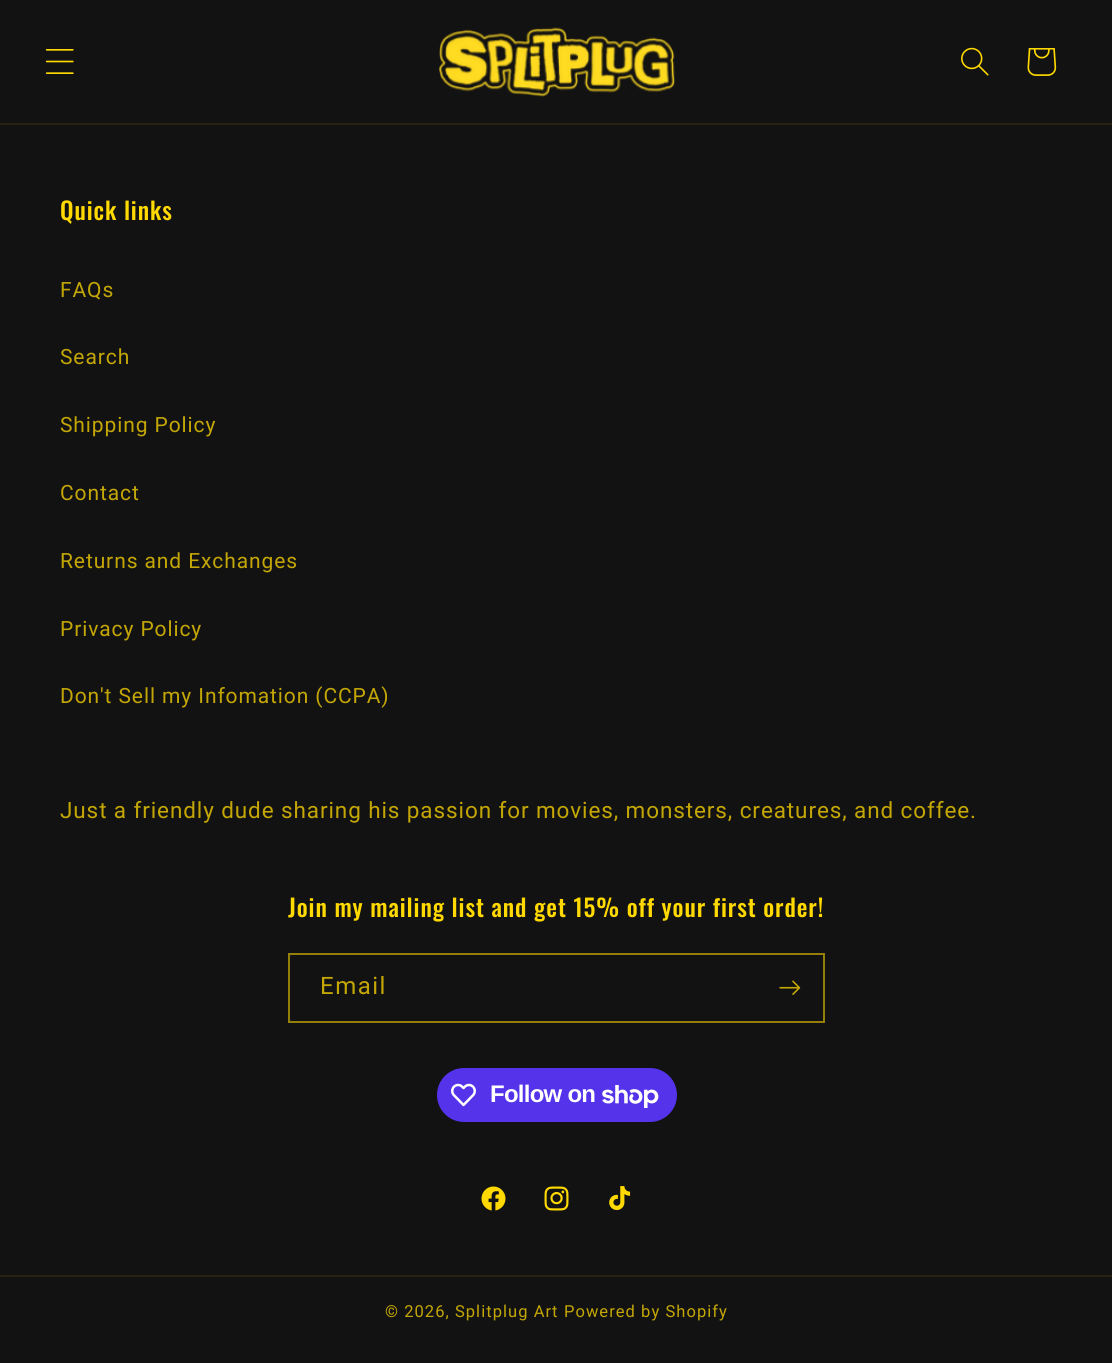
#include <cairo.h>
#include <math.h>
#include <stddef.h>

static cairo_t *ctx;

static void use_color(int r, int g, int b) {
    cairo_set_source_rgb(ctx, r / 255.0, g / 255.0, b / 255.0);
}

static void spaced_text(double x, double y, const char *s, double letter, double word) {
    cairo_move_to(ctx, x, y);
    while (*s) {
        char ch[5] = {0};
        int n = 0;
        do ch[n++] = *s++; while ((*s & 0xC0) == 0x80);
        cairo_show_text(ctx, ch);
        cairo_rel_move_to(ctx, letter + word * (*ch == ' '), 0);
    }
}

static void round_rect(double x, double y, double w, double h, double r) {
    cairo_new_sub_path(ctx);
    cairo_arc(ctx, x + w - r, y + h - r, r, 0, M_PI / 2);
    cairo_arc(ctx, x + r, y + h - r, r, M_PI / 2, M_PI);
    cairo_arc(ctx, x + r, y + r, r, M_PI, 1.5 * M_PI);
    cairo_arc(ctx, x + w - r, y + r, r, 1.5 * M_PI, 2 * M_PI);
    cairo_close_path(ctx);
}

static void picture(const char *path, double x, double y, double w, double h) {
    cairo_surface_t *image = cairo_image_surface_create_from_png(path);
    cairo_save(ctx);
    cairo_set_source_surface(ctx, image, x, y);
    cairo_rectangle(ctx, x, y, w, h);
    cairo_fill(ctx);
    cairo_restore(ctx);
    cairo_surface_destroy(image);
}

int main(void) {
    cairo_surface_t *surface = cairo_image_surface_create(CAIRO_FORMAT_RGB24, 1112, 1363);
    ctx = cairo_create(surface);
    cairo_font_options_t *options = cairo_font_options_create();
    cairo_font_options_set_hint_metrics(options, CAIRO_HINT_METRICS_OFF);
    cairo_font_options_set_hint_style(options, CAIRO_HINT_STYLE_NONE);
    cairo_set_font_options(ctx, options);
    cairo_set_miter_limit(ctx, 4);
    use_color(18, 18, 18);
    cairo_paint(ctx);
    use_color(37, 34, 17);
    cairo_rectangle(ctx, 0, 123, 1112, 2);
    cairo_fill(ctx);
    picture("img1.png", 45, 49, 29, 25);
    picture("img2.png", 439, 27, 236, 70);
    picture("img3.png", 961, 47, 28, 29);
    picture("img4.png", 1027, 48, 30, 28);
    cairo_select_font_face(ctx, "Oswald Medium", CAIRO_FONT_SLANT_NORMAL, CAIRO_FONT_WEIGHT_NORMAL);
    cairo_set_font_size(ctx, 24);
    use_color(255, 217, 0);
    spaced_text(60, 220, "Quick links", 0.9, 0);
    cairo_select_font_face(ctx, "Roboto", CAIRO_FONT_SLANT_NORMAL, CAIRO_FONT_WEIGHT_NORMAL);
    cairo_set_font_size(ctx, 21);
    use_color(196, 167, 5);
    spaced_text(60, 297, "FAQs", 0.9, 0);
    spaced_text(60, 364, "Search", 0.9, 0);
    spaced_text(60, 432, "Shipping Policy", 0.9, 0);
    spaced_text(60, 500, "Contact", 0.9, 0);
    spaced_text(60, 568, "Returns and Exchanges", 0.9, 0);
    spaced_text(60, 636, "Privacy Policy", 0.9, 0);
    spaced_text(60, 703, "Don't Sell my Infomation (CCPA)", 0.9, 0);
    cairo_set_font_size(ctx, 22.5);
    spaced_text(60, 818, "Just a friendly dude sharing his passion for movies, monsters, creatures, and coffee.", 0.9, 0);
    cairo_select_font_face(ctx, "Oswald Medium", CAIRO_FONT_SLANT_NORMAL, CAIRO_FONT_WEIGHT_NORMAL);
    cairo_set_font_size(ctx, 24);
    use_color(255, 217, 0);
    spaced_text(288, 917, "Join my mailing list and get 15% off your first order!", 0.9, 0);
    cairo_rectangle(ctx, 289, 954, 535, 68);
    use_color(148, 127, 8);
    cairo_stroke(ctx);
    cairo_select_font_face(ctx, "Roboto", CAIRO_FONT_SLANT_NORMAL, CAIRO_FONT_WEIGHT_NORMAL);
    use_color(196, 167, 5);
    spaced_text(320, 994, "Email", 1.5, 0);
    picture("img5.png", 779, 980, 22, 15);
    use_color(84, 51, 235);
    round_rect(437, 1068, 240, 54, 27);
    cairo_fill(ctx);
    picture("img6.png", 451, 1083, 25, 24);
    cairo_select_font_face(ctx, "Liberation Sans", CAIRO_FONT_SLANT_NORMAL, CAIRO_FONT_WEIGHT_BOLD);
    use_color(255, 255, 255);
    spaced_text(490, 1102, "Follow on", -0.75, 0);
    picture("img7.png", 602, 1085, 57, 23);
    picture("img8.png", 481, 1186, 25, 25);
    picture("img9.png", 544, 1186, 25, 25);
    picture("img10.png", 609, 1186, 22, 25);
    use_color(37, 34, 17);
    cairo_rectangle(ctx, 0, 1275, 1112, 2);
    cairo_fill(ctx);
    cairo_select_font_face(ctx, "Roboto", CAIRO_FONT_SLANT_NORMAL, CAIRO_FONT_WEIGHT_NORMAL);
    cairo_set_font_size(ctx, 16.5);
    use_color(196, 167, 5);
    spaced_text(385, 1317, "© 2026, Splitplug Art", 1.05, 0);
    spaced_text(564, 1317, "Powered by Shopify", 1.05, 0);
    cairo_surface_write_to_png(surface, "result.png");
    cairo_font_options_destroy(options);
    cairo_destroy(ctx);
    cairo_surface_destroy(surface);
    return 0;
}
